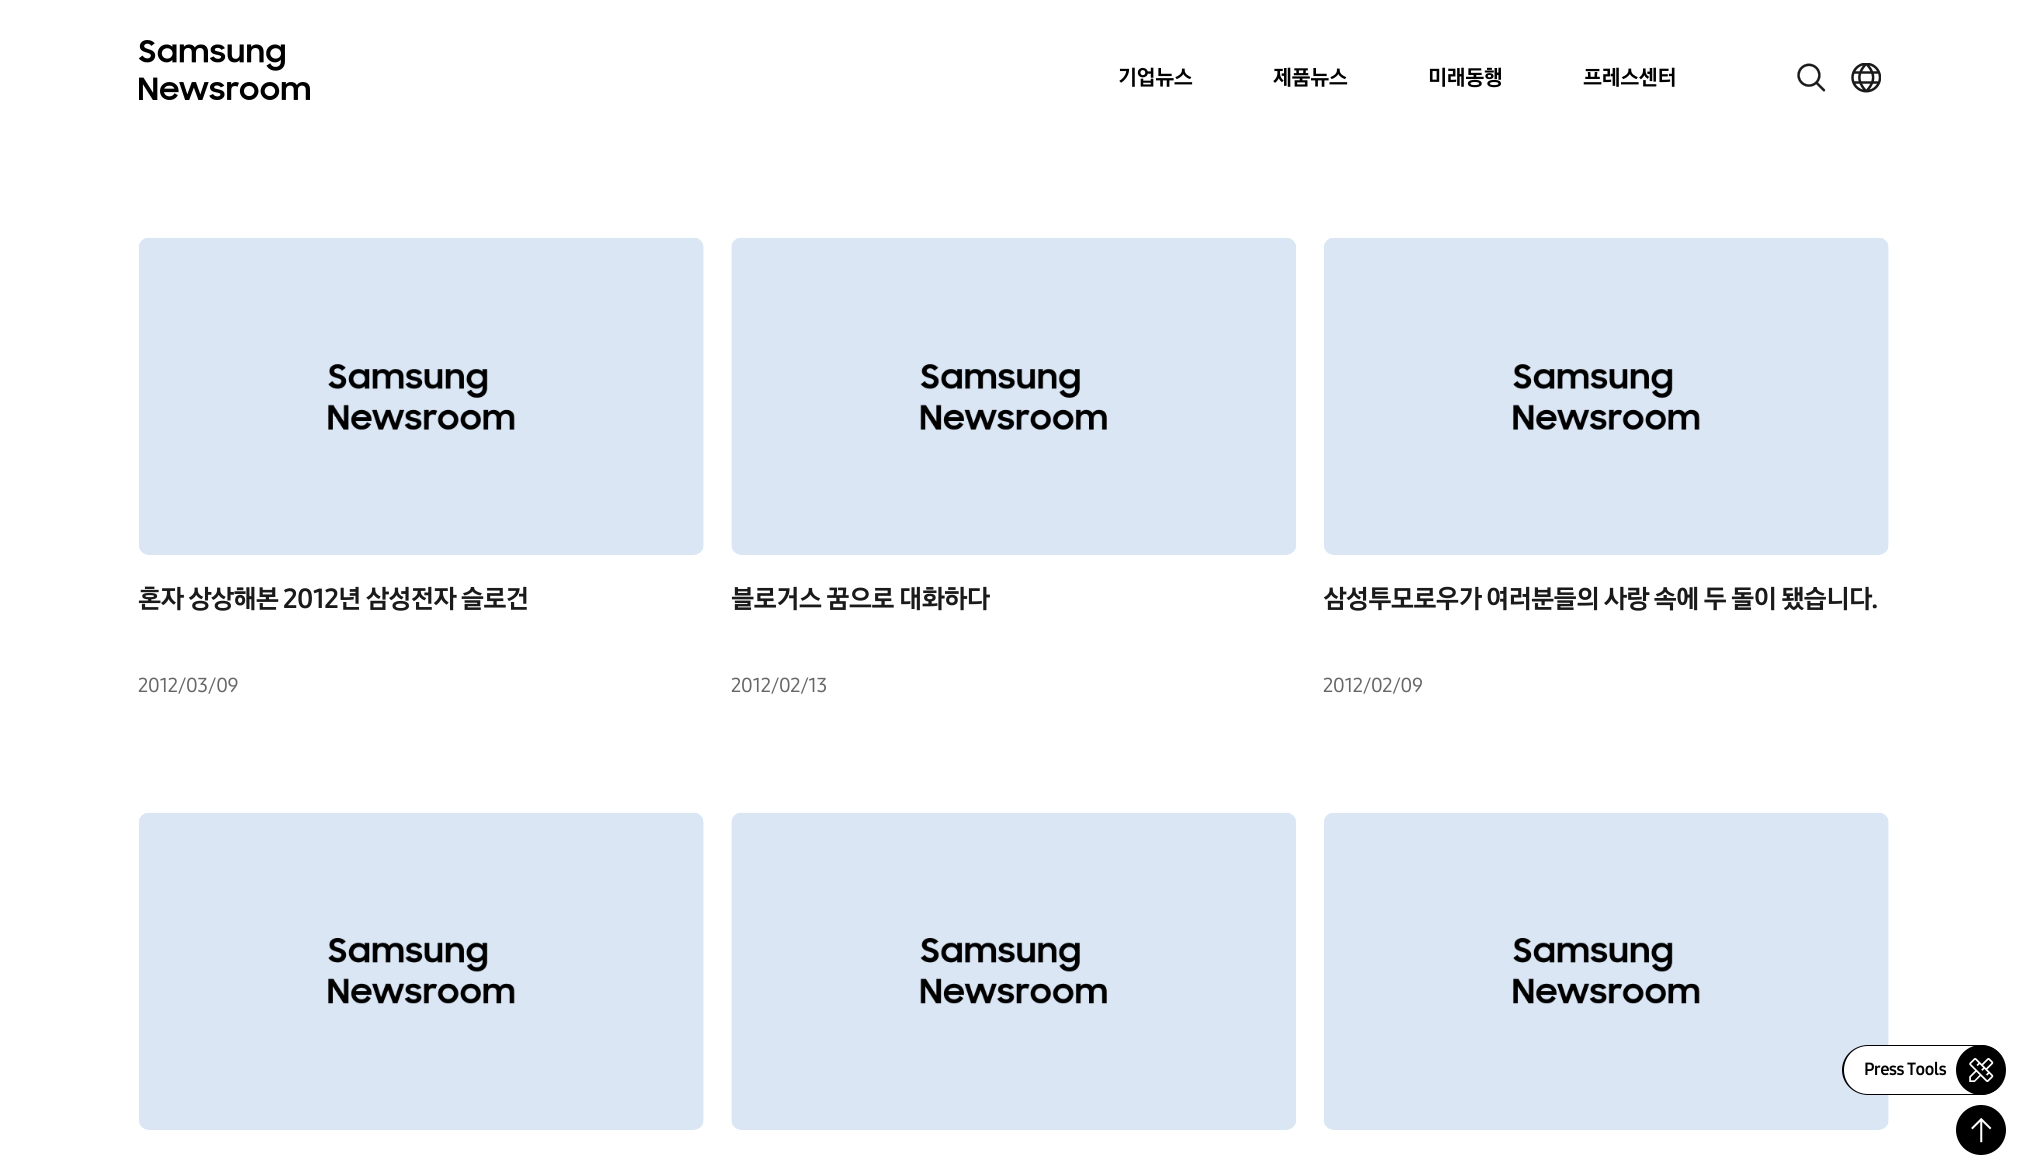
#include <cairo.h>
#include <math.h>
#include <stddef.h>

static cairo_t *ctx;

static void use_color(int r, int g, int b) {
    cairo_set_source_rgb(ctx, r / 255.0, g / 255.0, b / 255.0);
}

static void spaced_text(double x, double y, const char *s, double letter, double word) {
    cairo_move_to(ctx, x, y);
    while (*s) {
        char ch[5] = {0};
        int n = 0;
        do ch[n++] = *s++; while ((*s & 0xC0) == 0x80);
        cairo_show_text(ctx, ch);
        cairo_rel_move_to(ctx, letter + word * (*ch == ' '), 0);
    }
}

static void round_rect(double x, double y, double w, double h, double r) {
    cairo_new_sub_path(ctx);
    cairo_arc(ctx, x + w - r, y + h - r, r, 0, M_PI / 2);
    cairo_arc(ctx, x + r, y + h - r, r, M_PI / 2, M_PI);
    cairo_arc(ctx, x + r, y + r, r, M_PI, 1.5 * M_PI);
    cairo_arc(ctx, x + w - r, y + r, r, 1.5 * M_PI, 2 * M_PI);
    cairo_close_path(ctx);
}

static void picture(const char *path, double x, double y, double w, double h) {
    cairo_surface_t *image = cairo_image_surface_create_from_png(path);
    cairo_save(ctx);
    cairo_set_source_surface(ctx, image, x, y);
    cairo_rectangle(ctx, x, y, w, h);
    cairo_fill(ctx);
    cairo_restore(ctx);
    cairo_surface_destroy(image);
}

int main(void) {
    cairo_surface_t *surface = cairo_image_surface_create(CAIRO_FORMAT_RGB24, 2026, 1164);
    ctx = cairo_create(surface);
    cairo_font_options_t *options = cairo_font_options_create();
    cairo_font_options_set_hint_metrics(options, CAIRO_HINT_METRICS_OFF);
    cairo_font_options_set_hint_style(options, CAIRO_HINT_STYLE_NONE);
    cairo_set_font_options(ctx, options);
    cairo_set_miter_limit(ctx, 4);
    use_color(255, 255, 255);
    cairo_paint(ctx);
    picture("img1.png", 139, 40, 171, 60);
    cairo_select_font_face(ctx, "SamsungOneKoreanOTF", CAIRO_FONT_SLANT_NORMAL, CAIRO_FONT_WEIGHT_BOLD);
    cairo_set_font_size(ctx, 22.5);
    use_color(0, 0, 0);
    spaced_text(1118, 85, "기업뉴스", -0.5, 0);
    spaced_text(1273, 85, "제품뉴스", -0.5, 0);
    spaced_text(1428, 85, "미래동행", -0.5, 0);
    spaced_text(1583, 85, "프레스센터", -0.5, 0);
    picture("img2.png", 1797, 63, 29, 29);
    picture("img3.png", 1851, 63, 30, 30);
    picture("img4.png", 139, 237, 565, 318);
    cairo_set_font_size(ctx, 27.5);
    use_color(26, 26, 26);
    spaced_text(138, 608, "혼자 상상해본 2012년 삼성전자 슬로건", -0.8, 0);
    cairo_select_font_face(ctx, "SamsungOneKoreanOTF Medium", CAIRO_FONT_SLANT_NORMAL, CAIRO_FONT_WEIGHT_NORMAL);
    cairo_set_font_size(ctx, 20);
    use_color(102, 102, 102);
    spaced_text(138, 692, "2012/03/09", -0.5, 0);
    picture("img5.png", 731, 237, 565, 318);
    cairo_select_font_face(ctx, "SamsungOneKoreanOTF", CAIRO_FONT_SLANT_NORMAL, CAIRO_FONT_WEIGHT_BOLD);
    cairo_set_font_size(ctx, 27.5);
    use_color(26, 26, 26);
    spaced_text(731, 608, "블로거스 꿈으로 대화하다", -0.8, 0);
    cairo_select_font_face(ctx, "SamsungOneKoreanOTF Medium", CAIRO_FONT_SLANT_NORMAL, CAIRO_FONT_WEIGHT_NORMAL);
    cairo_set_font_size(ctx, 20);
    use_color(102, 102, 102);
    spaced_text(731, 692, "2012/02/13", -0.5, 0);
    picture("img4.png", 1324, 237, 565, 318);
    cairo_select_font_face(ctx, "SamsungOneKoreanOTF", CAIRO_FONT_SLANT_NORMAL, CAIRO_FONT_WEIGHT_BOLD);
    cairo_set_font_size(ctx, 27.5);
    use_color(26, 26, 26);
    spaced_text(1323, 608, "삼성투모로우가 여러분들의 사랑 속에 두 돌이 됐습니다.", -0.8, 0);
    cairo_select_font_face(ctx, "SamsungOneKoreanOTF Medium", CAIRO_FONT_SLANT_NORMAL, CAIRO_FONT_WEIGHT_NORMAL);
    cairo_set_font_size(ctx, 20);
    use_color(102, 102, 102);
    spaced_text(1323, 692, "2012/02/09", -0.5, 0);
    picture("img6.png", 139, 812, 565, 318);
    picture("img7.png", 731, 812, 565, 318);
    picture("img6.png", 1324, 812, 565, 318);
    use_color(255, 255, 255);
    round_rect(1843, 1045, 163, 50, 25);
    cairo_fill(ctx);
    use_color(0, 0, 0);
    cairo_set_fill_rule(ctx, CAIRO_FILL_RULE_EVEN_ODD);
    cairo_new_path(ctx);
    cairo_move_to(ctx, 1868, 1045);
    cairo_line_to(ctx, 1981, 1045);
    cairo_curve_to(ctx, 1995, 1045, 2006, 1056, 2006, 1070);
    cairo_curve_to(ctx, 2006, 1084, 1995, 1095, 1981, 1095);
    cairo_line_to(ctx, 1868, 1095);
    cairo_curve_to(ctx, 1854, 1095, 1842, 1084, 1842, 1070);
    cairo_curve_to(ctx, 1842, 1056, 1854, 1045, 1868, 1045);
    cairo_close_path(ctx);
    cairo_move_to(ctx, 1868, 1046);
    cairo_line_to(ctx, 1981, 1046);
    cairo_curve_to(ctx, 1995, 1046, 2006, 1057, 2006, 1070);
    cairo_curve_to(ctx, 2006, 1083, 1995, 1094, 1981, 1094);
    cairo_line_to(ctx, 1868, 1094);
    cairo_curve_to(ctx, 1854, 1094, 1844, 1083, 1844, 1070);
    cairo_curve_to(ctx, 1844, 1057, 1854, 1046, 1868, 1046);
    cairo_close_path(ctx);
    cairo_fill(ctx);
    cairo_select_font_face(ctx, "SamsungOneKoreanOTF", CAIRO_FONT_SLANT_NORMAL, CAIRO_FONT_WEIGHT_BOLD);
    cairo_set_font_size(ctx, 17.5);
    spaced_text(1864, 1075, "Press Tools", -0.5, 0);
    cairo_new_path(ctx);
    cairo_arc(ctx, 1981, 1070, 25, 0, 2 * M_PI);
    cairo_fill(ctx);
    picture("img8.png", 1969, 1058, 25, 24);
    cairo_arc(ctx, 1981, 1130, 25, 0, 2 * M_PI);
    cairo_fill(ctx);
    picture("img9.png", 1971, 1117, 21, 26);
    cairo_surface_write_to_png(surface, "result.png");
    cairo_font_options_destroy(options);
    cairo_destroy(ctx);
    cairo_surface_destroy(surface);
    return 0;
}
